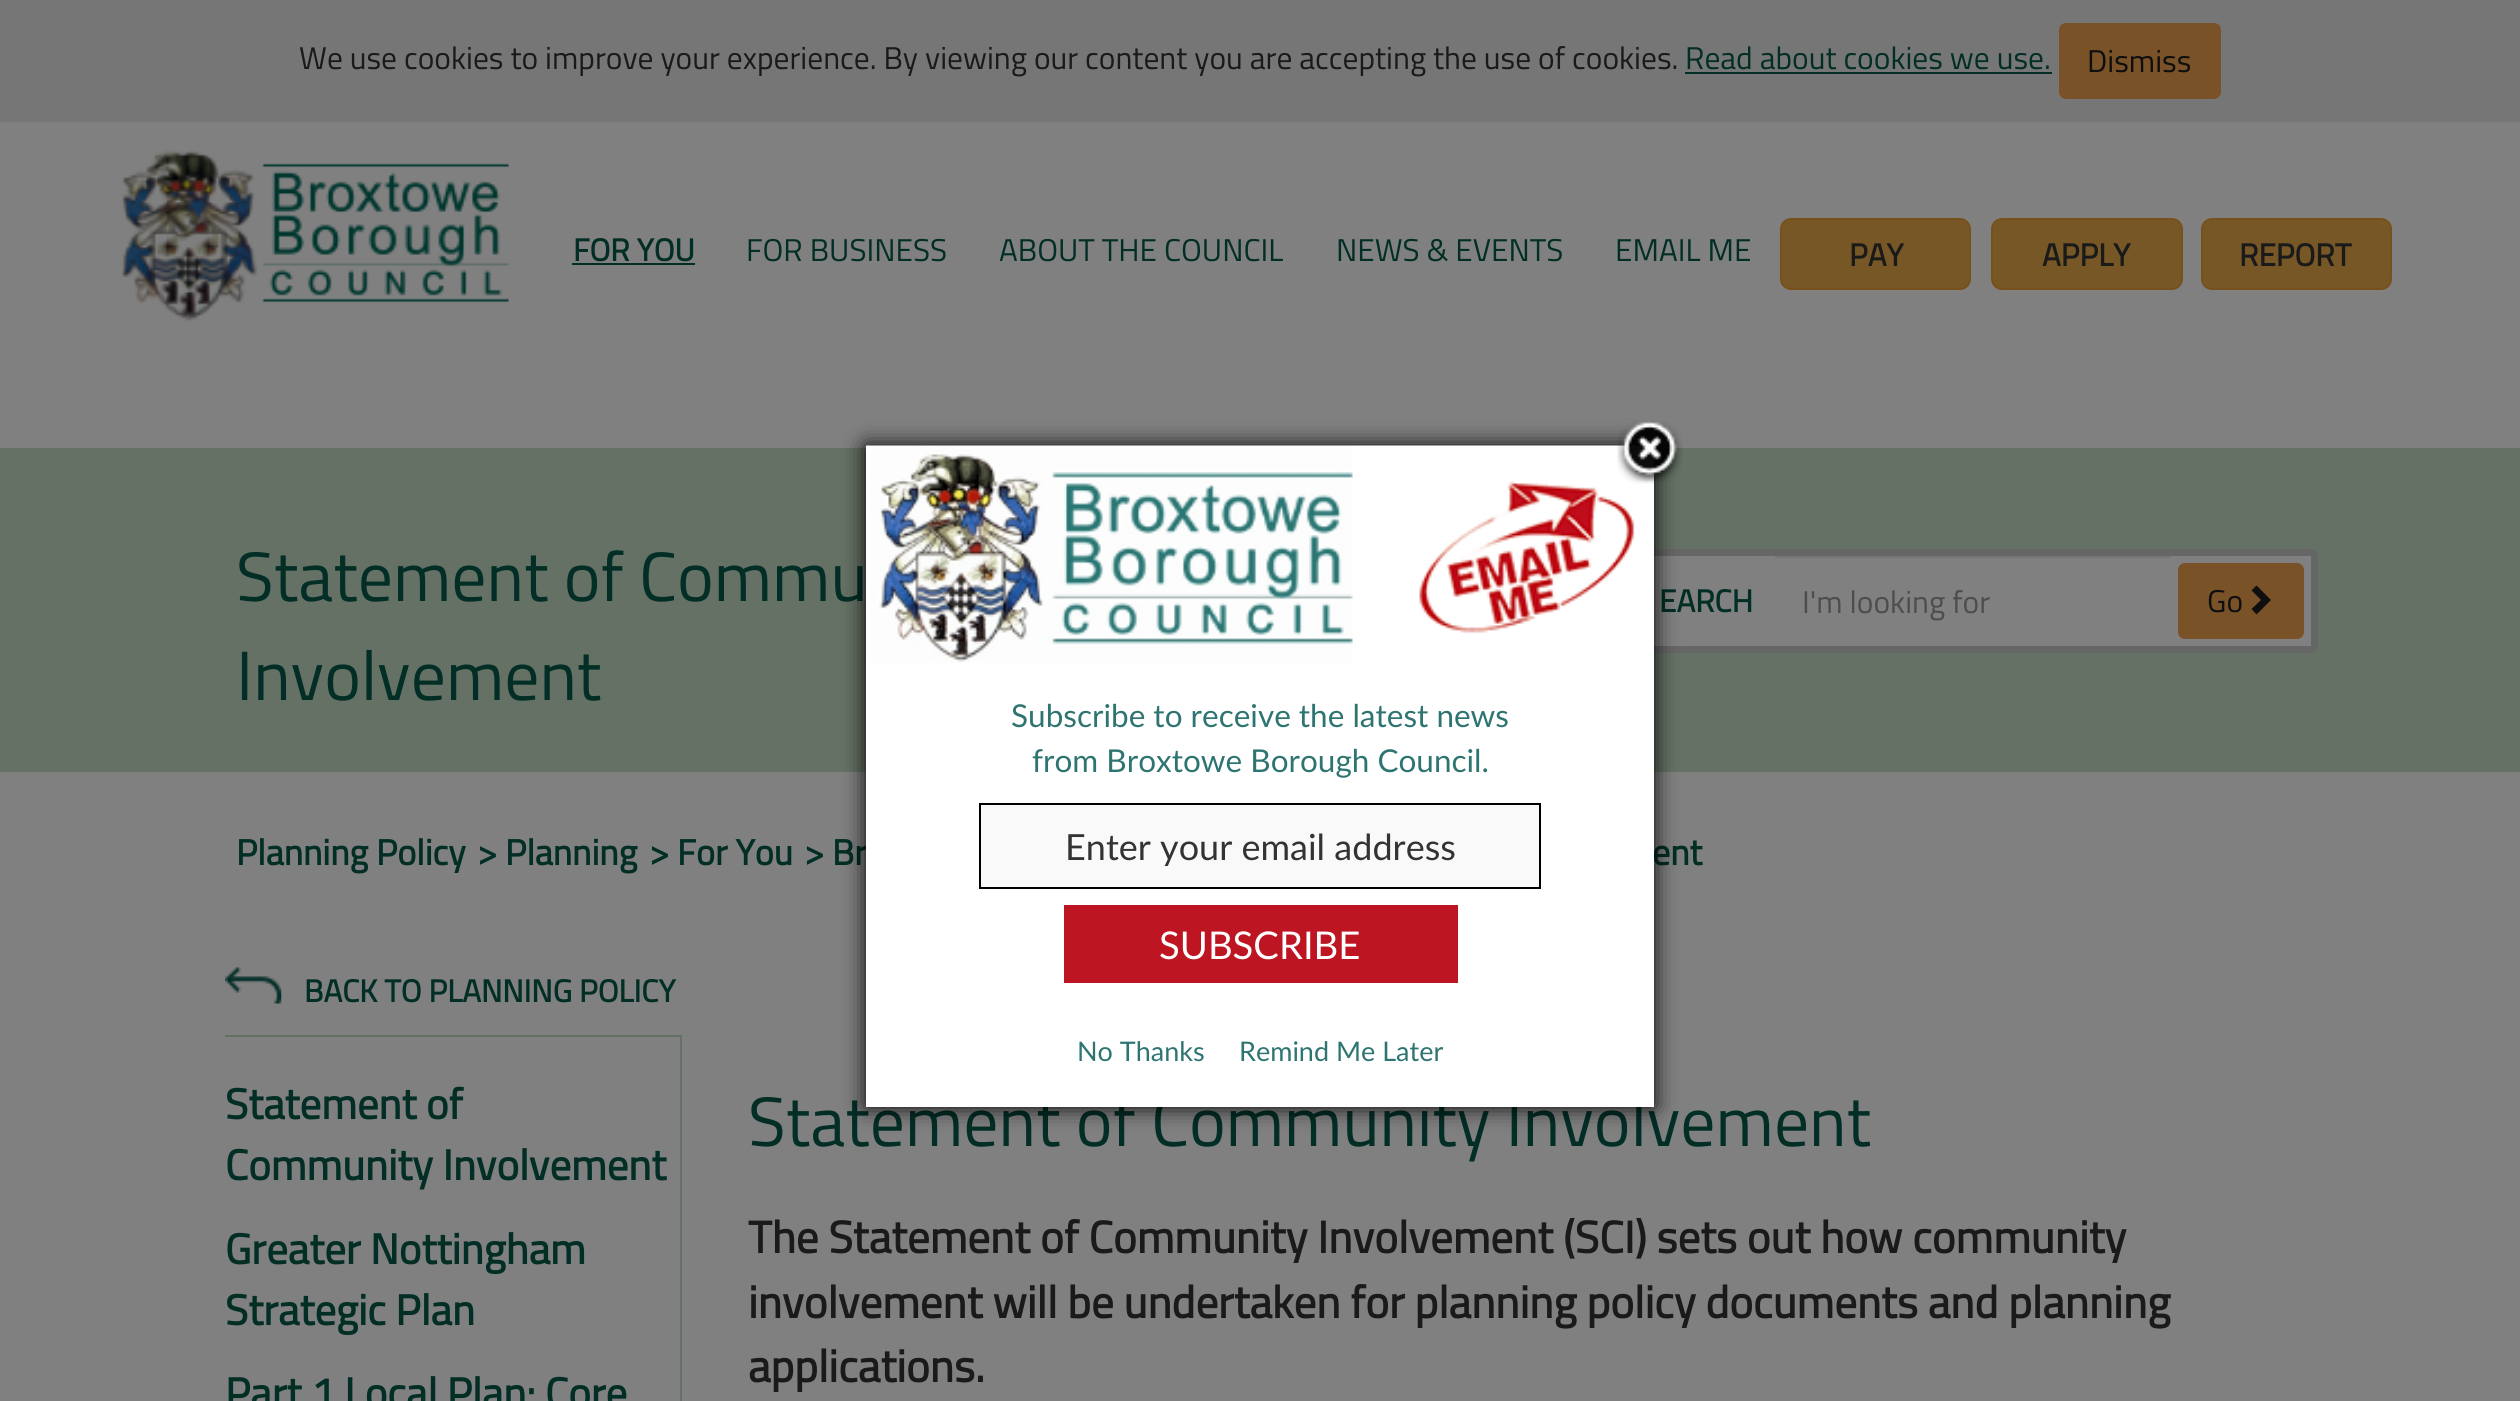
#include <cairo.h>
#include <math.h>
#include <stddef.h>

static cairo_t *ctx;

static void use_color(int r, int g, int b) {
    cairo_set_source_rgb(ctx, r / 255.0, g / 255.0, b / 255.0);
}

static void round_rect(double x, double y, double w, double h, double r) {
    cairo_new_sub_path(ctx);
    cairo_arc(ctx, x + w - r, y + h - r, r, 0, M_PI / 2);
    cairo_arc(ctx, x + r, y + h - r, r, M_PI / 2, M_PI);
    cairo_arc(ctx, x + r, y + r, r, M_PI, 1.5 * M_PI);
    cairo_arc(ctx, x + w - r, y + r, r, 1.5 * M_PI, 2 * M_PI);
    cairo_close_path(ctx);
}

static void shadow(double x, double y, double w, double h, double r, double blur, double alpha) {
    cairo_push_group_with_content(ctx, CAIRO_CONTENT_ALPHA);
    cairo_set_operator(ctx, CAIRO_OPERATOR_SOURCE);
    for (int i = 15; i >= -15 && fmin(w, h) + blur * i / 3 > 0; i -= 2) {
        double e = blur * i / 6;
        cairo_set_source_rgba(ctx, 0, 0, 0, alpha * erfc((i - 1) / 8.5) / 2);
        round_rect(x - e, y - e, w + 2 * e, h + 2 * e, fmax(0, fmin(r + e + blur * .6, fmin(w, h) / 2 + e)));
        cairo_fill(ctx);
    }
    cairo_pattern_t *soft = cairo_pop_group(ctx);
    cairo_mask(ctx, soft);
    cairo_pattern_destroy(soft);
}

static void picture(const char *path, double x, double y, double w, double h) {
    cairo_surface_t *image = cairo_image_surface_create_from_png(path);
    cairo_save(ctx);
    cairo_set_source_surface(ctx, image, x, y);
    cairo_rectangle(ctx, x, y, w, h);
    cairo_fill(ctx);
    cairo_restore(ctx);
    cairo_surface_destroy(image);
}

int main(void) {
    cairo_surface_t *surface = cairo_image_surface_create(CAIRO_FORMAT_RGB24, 2520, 1401);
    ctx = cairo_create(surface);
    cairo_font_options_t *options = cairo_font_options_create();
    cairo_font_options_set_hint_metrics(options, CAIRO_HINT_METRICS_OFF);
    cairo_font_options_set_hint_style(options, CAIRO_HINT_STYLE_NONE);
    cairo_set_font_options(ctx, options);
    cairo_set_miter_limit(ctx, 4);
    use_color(128, 128, 128);
    cairo_paint(ctx);
    use_color(118, 118, 118);
    cairo_rectangle(ctx, 0, 0, 2520, 122);
    cairo_fill(ctx);
    cairo_select_font_face(ctx, "Titillium Web", CAIRO_FONT_SLANT_NORMAL, CAIRO_FONT_WEIGHT_NORMAL);
    cairo_set_font_size(ctx, 31.5);
    use_color(26, 26, 26);
    cairo_move_to(ctx, 299, 69);
    cairo_show_text(ctx, "We use cookies to improve your experience. By viewing our content you are accepting the use of cookies.");
    use_color(2, 46, 38);
    cairo_move_to(ctx, 1685, 69);
    cairo_show_text(ctx, "Read about cookies we use.");
    cairo_rectangle(ctx, 1685, 72, 367, 2);
    cairo_fill(ctx);
    use_color(122, 82, 39);
    round_rect(2059, 23, 162, 76, 7);
    cairo_fill(ctx);
    use_color(15, 15, 15);
    cairo_move_to(ctx, 2087, 72);
    cairo_show_text(ctx, "Dismiss");
    picture("img1.png", 121, 149, 388, 173);
    cairo_select_font_face(ctx, "Titillium Web", CAIRO_FONT_SLANT_NORMAL, CAIRO_FONT_WEIGHT_BOLD);
    use_color(2, 46, 38);
    cairo_move_to(ctx, 573, 261);
    cairo_show_text(ctx, "FOR YOU");
    cairo_rectangle(ctx, 572, 263, 123, 2);
    cairo_fill(ctx);
    cairo_select_font_face(ctx, "Titillium Web", CAIRO_FONT_SLANT_NORMAL, CAIRO_FONT_WEIGHT_NORMAL);
    cairo_move_to(ctx, 746, 261);
    cairo_show_text(ctx, "FOR BUSINESS");
    cairo_move_to(ctx, 999, 261);
    cairo_show_text(ctx, "ABOUT THE COUNCIL");
    cairo_move_to(ctx, 1336, 261);
    cairo_show_text(ctx, "NEWS & EVENTS");
    cairo_move_to(ctx, 1615, 261);
    cairo_show_text(ctx, "EMAIL ME");
    use_color(120, 87, 39);
    round_rect(1781, 219, 189, 70, 10);
    cairo_fill_preserve(ctx);
    use_color(119, 81, 27);
    cairo_stroke(ctx);
    cairo_select_font_face(ctx, "Titillium Web", CAIRO_FONT_SLANT_NORMAL, CAIRO_FONT_WEIGHT_BOLD);
    use_color(26, 26, 26);
    cairo_move_to(ctx, 1849, 266);
    cairo_show_text(ctx, "PAY");
    use_color(120, 87, 39);
    round_rect(1992, 219, 190, 70, 10);
    cairo_fill_preserve(ctx);
    use_color(119, 81, 27);
    cairo_stroke(ctx);
    use_color(26, 26, 26);
    cairo_move_to(ctx, 2042, 266);
    cairo_show_text(ctx, "APPLY");
    use_color(120, 87, 39);
    round_rect(2202, 219, 189, 70, 10);
    cairo_fill_preserve(ctx);
    use_color(119, 81, 27);
    cairo_stroke(ctx);
    use_color(26, 26, 26);
    cairo_move_to(ctx, 2239, 266);
    cairo_show_text(ctx, "REPORT");
    use_color(101, 113, 101);
    cairo_rectangle(ctx, 0, 448, 2520, 324);
    cairo_fill(ctx);
    cairo_select_font_face(ctx, "Titillium Web", CAIRO_FONT_SLANT_NORMAL, CAIRO_FONT_WEIGHT_NORMAL);
    cairo_set_font_size(ctx, 69.75);
    use_color(2, 46, 38);
    cairo_move_to(ctx, 236, 601);
    cairo_show_text(ctx, "Statement of Commu");
    cairo_move_to(ctx, 236, 700);
    cairo_show_text(ctx, "Involvement");
    use_color(128, 128, 128);
    round_rect(1616.5, 552.5, 698, 97, 3.5);
    cairo_fill_preserve(ctx);
    use_color(102, 102, 102);
    cairo_set_line_width(ctx, 7);
    cairo_stroke(ctx);
    cairo_select_font_face(ctx, "Titillium Web", CAIRO_FONT_SLANT_NORMAL, CAIRO_FONT_WEIGHT_BOLD);
    cairo_set_font_size(ctx, 31.5);
    use_color(2, 46, 38);
    cairo_move_to(ctx, 1659, 612);
    cairo_show_text(ctx, "EARCH");
    use_color(118, 118, 118);
    cairo_rectangle(ctx, 1775, 556, 396, 2);
    cairo_fill(ctx);
    cairo_select_font_face(ctx, "Titillium Web", CAIRO_FONT_SLANT_NORMAL, CAIRO_FONT_WEIGHT_NORMAL);
    use_color(77, 77, 77);
    cairo_move_to(ctx, 1802, 613);
    cairo_show_text(ctx, "I'm looking for");
    use_color(122, 82, 39);
    round_rect(2178, 563, 126, 76, 7);
    cairo_fill(ctx);
    use_color(15, 15, 15);
    cairo_move_to(ctx, 2207, 612);
    cairo_show_text(ctx, "Go");
    cairo_new_path(ctx);
    cairo_move_to(ctx, 2271, 600);
    cairo_line_to(ctx, 2256.5, 614.5);
    cairo_line_to(ctx, 2251.5, 609);
    cairo_line_to(ctx, 2261, 600);
    cairo_line_to(ctx, 2251.5, 590.5);
    cairo_line_to(ctx, 2256.5, 585.5);
    cairo_close_path(ctx);
    cairo_fill(ctx);
    cairo_select_font_face(ctx, "Titillium Web", CAIRO_FONT_SLANT_NORMAL, CAIRO_FONT_WEIGHT_BOLD);
    cairo_set_font_size(ctx, 36);
    use_color(2, 46, 38);
    cairo_move_to(ctx, 236, 865);
    cairo_show_text(ctx, "Planning Policy");
    cairo_move_to(ctx, 477, 865);
    cairo_show_text(ctx, "> Planning");
    cairo_move_to(ctx, 649, 865);
    cairo_show_text(ctx, "> For You");
    cairo_move_to(ctx, 804, 865);
    cairo_show_text(ctx, "> Br");
    cairo_move_to(ctx, 1652, 865);
    cairo_show_text(ctx, "ent");
    picture("img2.png", 225, 967, 57, 37);
    cairo_set_font_size(ctx, 31.5);
    cairo_move_to(ctx, 304, 1002);
    cairo_show_text(ctx, "BACK TO PLANNING POLICY");
    use_color(101, 113, 101);
    cairo_rectangle(ctx, 225, 1035, 457, 2);
    cairo_fill(ctx);
    cairo_rectangle(ctx, 680, 1035, 2, 366);
    cairo_fill(ctx);
    cairo_set_font_size(ctx, 42.75);
    use_color(2, 46, 38);
    cairo_move_to(ctx, 225, 1119);
    cairo_show_text(ctx, "Statement of");
    cairo_move_to(ctx, 225, 1180);
    cairo_show_text(ctx, "Community Involvement");
    cairo_move_to(ctx, 225, 1264);
    cairo_show_text(ctx, "Greater Nottingham");
    cairo_move_to(ctx, 225, 1325);
    cairo_show_text(ctx, "Strategic Plan");
    cairo_move_to(ctx, 225, 1408);
    cairo_show_text(ctx, "Part 1 Local Plan: Core");
    cairo_select_font_face(ctx, "Titillium Web", CAIRO_FONT_SLANT_NORMAL, CAIRO_FONT_WEIGHT_NORMAL);
    cairo_set_font_size(ctx, 69.75);
    cairo_move_to(ctx, 748, 1146);
    cairo_show_text(ctx, "Statement of Community Involvement");
    cairo_select_font_face(ctx, "Titillium Web", CAIRO_FONT_SLANT_NORMAL, CAIRO_FONT_WEIGHT_BOLD);
    cairo_set_font_size(ctx, 45);
    use_color(26, 26, 26);
    cairo_move_to(ctx, 748, 1253);
    cairo_show_text(ctx, "The Statement of Community Involvement (SCI) sets out how community");
    cairo_move_to(ctx, 748, 1318);
    cairo_show_text(ctx, "involvement will be undertaken for planning policy documents and planning");
    cairo_move_to(ctx, 748, 1382);
    cairo_show_text(ctx, "applications.");
    use_color(0, 0, 0);
    shadow(866, 446, 788, 661, 0, 11, 1);
    use_color(255, 255, 255);
    cairo_rectangle(ctx, 866, 446, 788, 661);
    cairo_fill(ctx);
    picture("img4.png", 866, 445, 788, 218);
    picture("img3.png", 1617, 420, 66, 64);
    cairo_select_font_face(ctx, "Lato", CAIRO_FONT_SLANT_NORMAL, CAIRO_FONT_WEIGHT_NORMAL);
    cairo_set_font_size(ctx, 31.5);
    use_color(46, 117, 114);
    cairo_move_to(ctx, 1011, 727);
    cairo_show_text(ctx, "Subscribe to receive the latest news");
    cairo_move_to(ctx, 1032, 772);
    cairo_show_text(ctx, "from Broxtowe Borough Council.");
    use_color(249, 249, 249);
    cairo_rectangle(ctx, 980, 804, 560, 84);
    cairo_fill_preserve(ctx);
    use_color(0, 0, 0);
    cairo_set_line_width(ctx, 2);
    cairo_stroke(ctx);
    cairo_save(ctx);
    cairo_rectangle(ctx, 997, 824, 526, 42);
    cairo_clip(ctx);
    cairo_set_font_size(ctx, 36);
    use_color(51, 51, 51);
    cairo_move_to(ctx, 1065, 860);
    cairo_show_text(ctx, "Enter your email address");
    cairo_restore(ctx);
    use_color(190, 21, 34);
    cairo_rectangle(ctx, 1064, 905, 394, 78);
    cairo_fill(ctx);
    cairo_set_font_size(ctx, 38.25);
    use_color(255, 255, 255);
    cairo_move_to(ctx, 1159, 959);
    cairo_show_text(ctx, "SUBSCRIBE");
    cairo_set_font_size(ctx, 27);
    use_color(46, 117, 114);
    cairo_move_to(ctx, 1077, 1061);
    cairo_show_text(ctx, "No Thanks");
    cairo_move_to(ctx, 1239, 1061);
    cairo_show_text(ctx, "Remind Me Later");
    cairo_surface_write_to_png(surface, "result.png");
    cairo_font_options_destroy(options);
    cairo_destroy(ctx);
    cairo_surface_destroy(surface);
    return 0;
}
